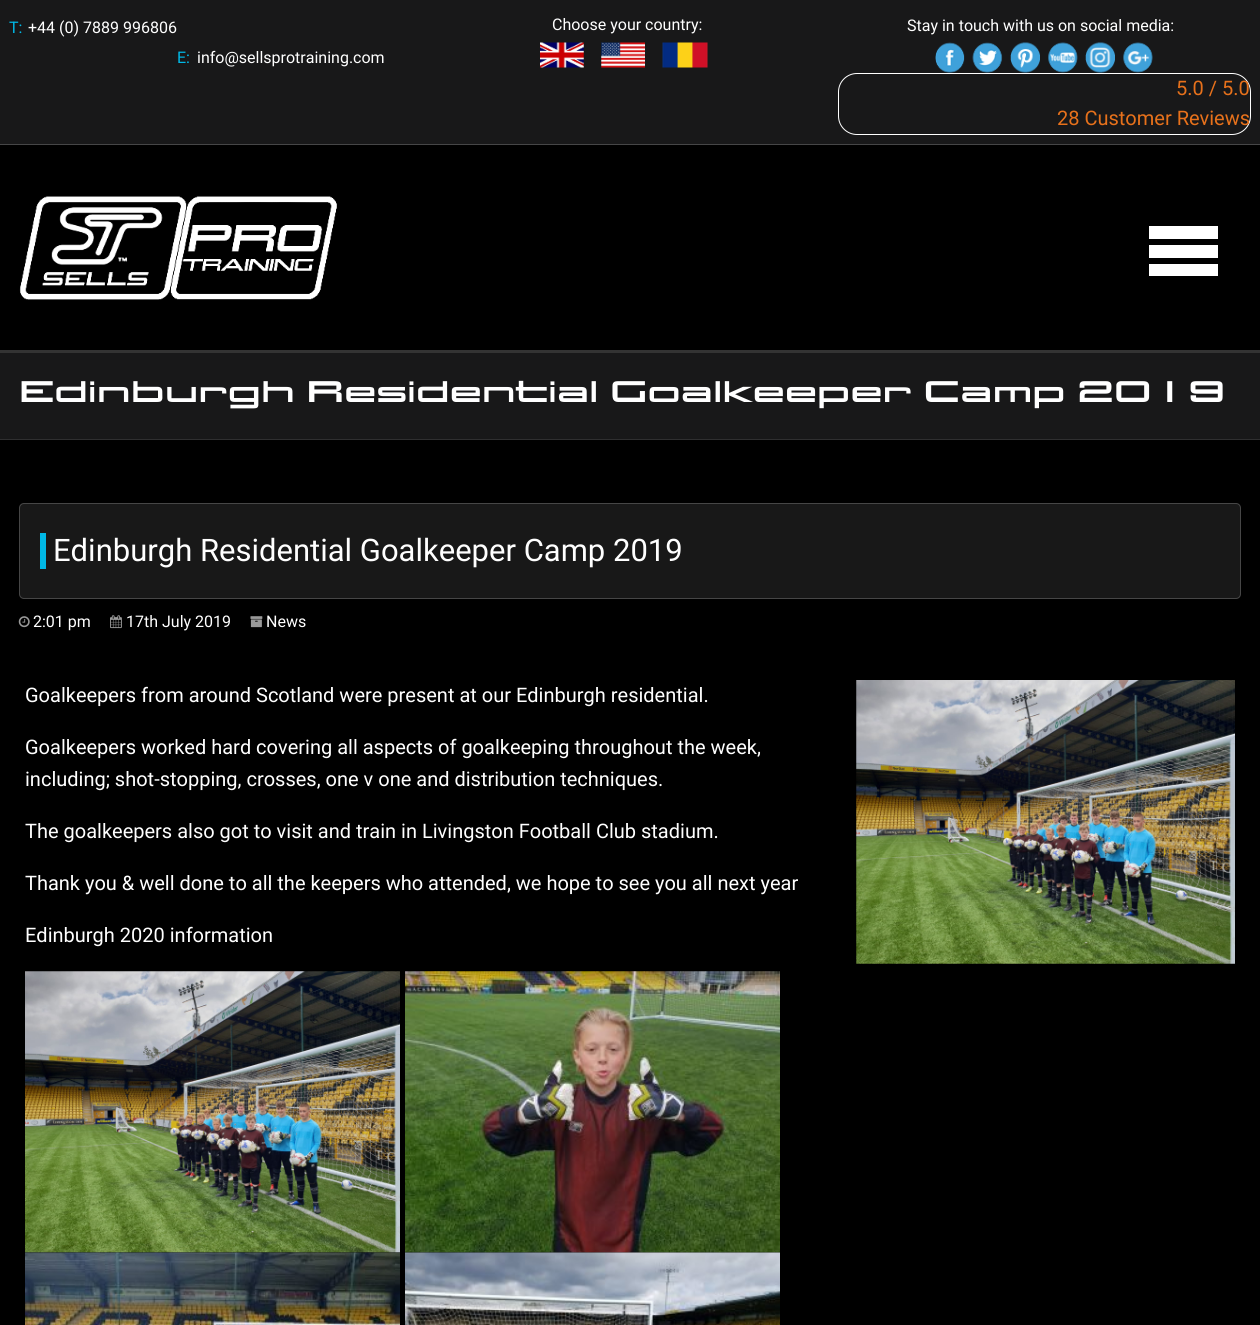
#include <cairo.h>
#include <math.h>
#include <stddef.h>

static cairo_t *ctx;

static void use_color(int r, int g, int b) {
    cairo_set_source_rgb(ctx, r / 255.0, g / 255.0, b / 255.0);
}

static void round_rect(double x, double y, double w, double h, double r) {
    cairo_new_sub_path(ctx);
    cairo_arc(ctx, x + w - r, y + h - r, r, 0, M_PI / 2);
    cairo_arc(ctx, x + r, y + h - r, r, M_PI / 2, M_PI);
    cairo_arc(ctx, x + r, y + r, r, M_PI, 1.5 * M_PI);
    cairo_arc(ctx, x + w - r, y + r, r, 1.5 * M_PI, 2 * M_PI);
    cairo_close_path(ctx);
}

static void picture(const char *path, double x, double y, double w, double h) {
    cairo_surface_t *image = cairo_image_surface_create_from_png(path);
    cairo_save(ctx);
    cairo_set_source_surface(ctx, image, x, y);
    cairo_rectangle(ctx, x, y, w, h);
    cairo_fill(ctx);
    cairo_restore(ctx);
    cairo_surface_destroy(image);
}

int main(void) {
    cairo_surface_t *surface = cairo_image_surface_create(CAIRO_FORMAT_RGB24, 1260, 1325);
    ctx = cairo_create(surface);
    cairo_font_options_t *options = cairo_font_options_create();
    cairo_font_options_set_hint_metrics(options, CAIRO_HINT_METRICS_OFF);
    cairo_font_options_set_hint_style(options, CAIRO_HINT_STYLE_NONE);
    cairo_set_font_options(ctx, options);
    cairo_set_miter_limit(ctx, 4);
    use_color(0, 0, 0);
    cairo_paint(ctx);
    use_color(51, 51, 51);
    cairo_rectangle(ctx, 0, 350, 1260, 3);
    cairo_fill(ctx);
    use_color(24, 24, 25);
    cairo_rectangle(ctx, 0, 0, 1260, 144);
    cairo_fill(ctx);
    use_color(70, 70, 71);
    cairo_rectangle(ctx, 0, 144, 1260, 1);
    cairo_fill(ctx);
    cairo_select_font_face(ctx, "Roboto", CAIRO_FONT_SLANT_NORMAL, CAIRO_FONT_WEIGHT_NORMAL);
    cairo_set_font_size(ctx, 16);
    use_color(0, 184, 230);
    cairo_move_to(ctx, 9, 33);
    cairo_show_text(ctx, "T:");
    use_color(255, 255, 255);
    cairo_move_to(ctx, 28, 33);
    cairo_show_text(ctx, "+44 (0) 7889 996806");
    use_color(0, 184, 230);
    cairo_move_to(ctx, 177, 63);
    cairo_show_text(ctx, "E:");
    use_color(255, 255, 255);
    cairo_move_to(ctx, 197, 63);
    cairo_show_text(ctx, "info@sellsprotraining.com");
    cairo_move_to(ctx, 552, 30);
    cairo_show_text(ctx, "Choose your country:");
    picture("img1.png", 540, 42, 44, 26);
    picture("img2.png", 601, 42, 44, 26);
    picture("img3.png", 662, 42, 46, 26);
    cairo_move_to(ctx, 907, 31);
    cairo_show_text(ctx, "Stay in touch with us on social media:");
    picture("img4.png", 935, 42, 30, 31);
    picture("img5.png", 972, 42, 31, 31);
    picture("img6.png", 1010, 42, 30, 31);
    picture("img7.png", 1048, 42, 30, 31);
    picture("img8.png", 1085, 42, 30, 31);
    picture("img9.png", 1123, 42, 30, 31);
    round_rect(838.5, 73.5, 412, 61, 18.5);
    cairo_set_line_width(ctx, 1);
    cairo_stroke(ctx);
    cairo_set_font_size(ctx, 20);
    use_color(231, 113, 27);
    cairo_move_to(ctx, 1176, 95);
    cairo_show_text(ctx, "5.0 / 5.0");
    cairo_move_to(ctx, 1057, 125);
    cairo_show_text(ctx, "28 Customer Reviews");
    picture("img10.png", 19, 196, 318, 104);
    use_color(255, 255, 255);
    cairo_rectangle(ctx, 1149, 264, 69, 12);
    cairo_fill(ctx);
    cairo_rectangle(ctx, 1149, 245, 69, 13);
    cairo_fill(ctx);
    cairo_rectangle(ctx, 1149, 226, 69, 13);
    cairo_fill(ctx);
    use_color(24, 24, 25);
    cairo_rectangle(ctx, 0, 353, 1260, 86);
    cairo_fill(ctx);
    use_color(47, 47, 48);
    cairo_rectangle(ctx, 0, 439, 1260, 1);
    cairo_fill(ctx);
    cairo_select_font_face(ctx, "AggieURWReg", CAIRO_FONT_SLANT_NORMAL, CAIRO_FONT_WEIGHT_NORMAL);
    cairo_set_font_size(ctx, 31.25);
    use_color(255, 255, 255);
    cairo_move_to(ctx, 19, 402);
    cairo_show_text(ctx, "Edinburgh Residential Goalkeeper Camp 2019");
    use_color(24, 24, 24);
    round_rect(19, 503, 1222, 96, 5);
    cairo_fill(ctx);
    round_rect(19.5, 503.5, 1221, 95, 4.5);
    cairo_set_source_rgba(ctx, 1, 1, 1, 0.2);
    cairo_stroke(ctx);
    cairo_select_font_face(ctx, "Roboto", CAIRO_FONT_SLANT_NORMAL, CAIRO_FONT_WEIGHT_NORMAL);
    cairo_set_font_size(ctx, 31);
    use_color(255, 255, 255);
    cairo_move_to(ctx, 53, 561);
    cairo_show_text(ctx, "Edinburgh Residential Goalkeeper Camp 2019");
    use_color(0, 184, 230);
    cairo_rectangle(ctx, 40, 533, 6, 36);
    cairo_fill(ctx);
    picture("img11.png", 18, 616, 12, 12);
    cairo_set_font_size(ctx, 16);
    use_color(255, 255, 255);
    cairo_move_to(ctx, 33, 627);
    cairo_show_text(ctx, "2:01 pm");
    picture("img12.png", 110, 615, 12, 14);
    cairo_move_to(ctx, 126, 627);
    cairo_show_text(ctx, "17th July 2019");
    picture("img13.png", 250, 616, 13, 12);
    cairo_move_to(ctx, 266, 627);
    cairo_show_text(ctx, "News");
    cairo_set_font_size(ctx, 20);
    cairo_move_to(ctx, 25, 702);
    cairo_show_text(ctx, "Goalkeepers from around Scotland were present at our Edinburgh residential.");
    cairo_move_to(ctx, 25, 754);
    cairo_show_text(ctx, "Goalkeepers worked hard covering all aspects of goalkeeping throughout the week,");
    cairo_move_to(ctx, 25, 786);
    cairo_show_text(ctx, "including; shot-stopping, crosses, one v one and distribution techniques.");
    cairo_move_to(ctx, 25, 838);
    cairo_show_text(ctx, "The goalkeepers also got to visit and train in Livingston Football Club stadium.");
    cairo_move_to(ctx, 25, 890);
    cairo_show_text(ctx, "Thank you & well done to all the keepers who attended, we hope to see you all next year");
    cairo_move_to(ctx, 25, 942);
    cairo_show_text(ctx, "Edinburgh 2020 information");
    picture("img14.png", 25, 971, 375, 282);
    picture("img15.png", 405, 971, 375, 282);
    picture("img16.png", 25, 1252, 375, 73);
    picture("img17.png", 405, 1252, 375, 73);
    picture("img18.png", 856, 680, 379, 284);
    cairo_surface_write_to_png(surface, "result.png");
    cairo_font_options_destroy(options);
    cairo_destroy(ctx);
    cairo_surface_destroy(surface);
    return 0;
}
